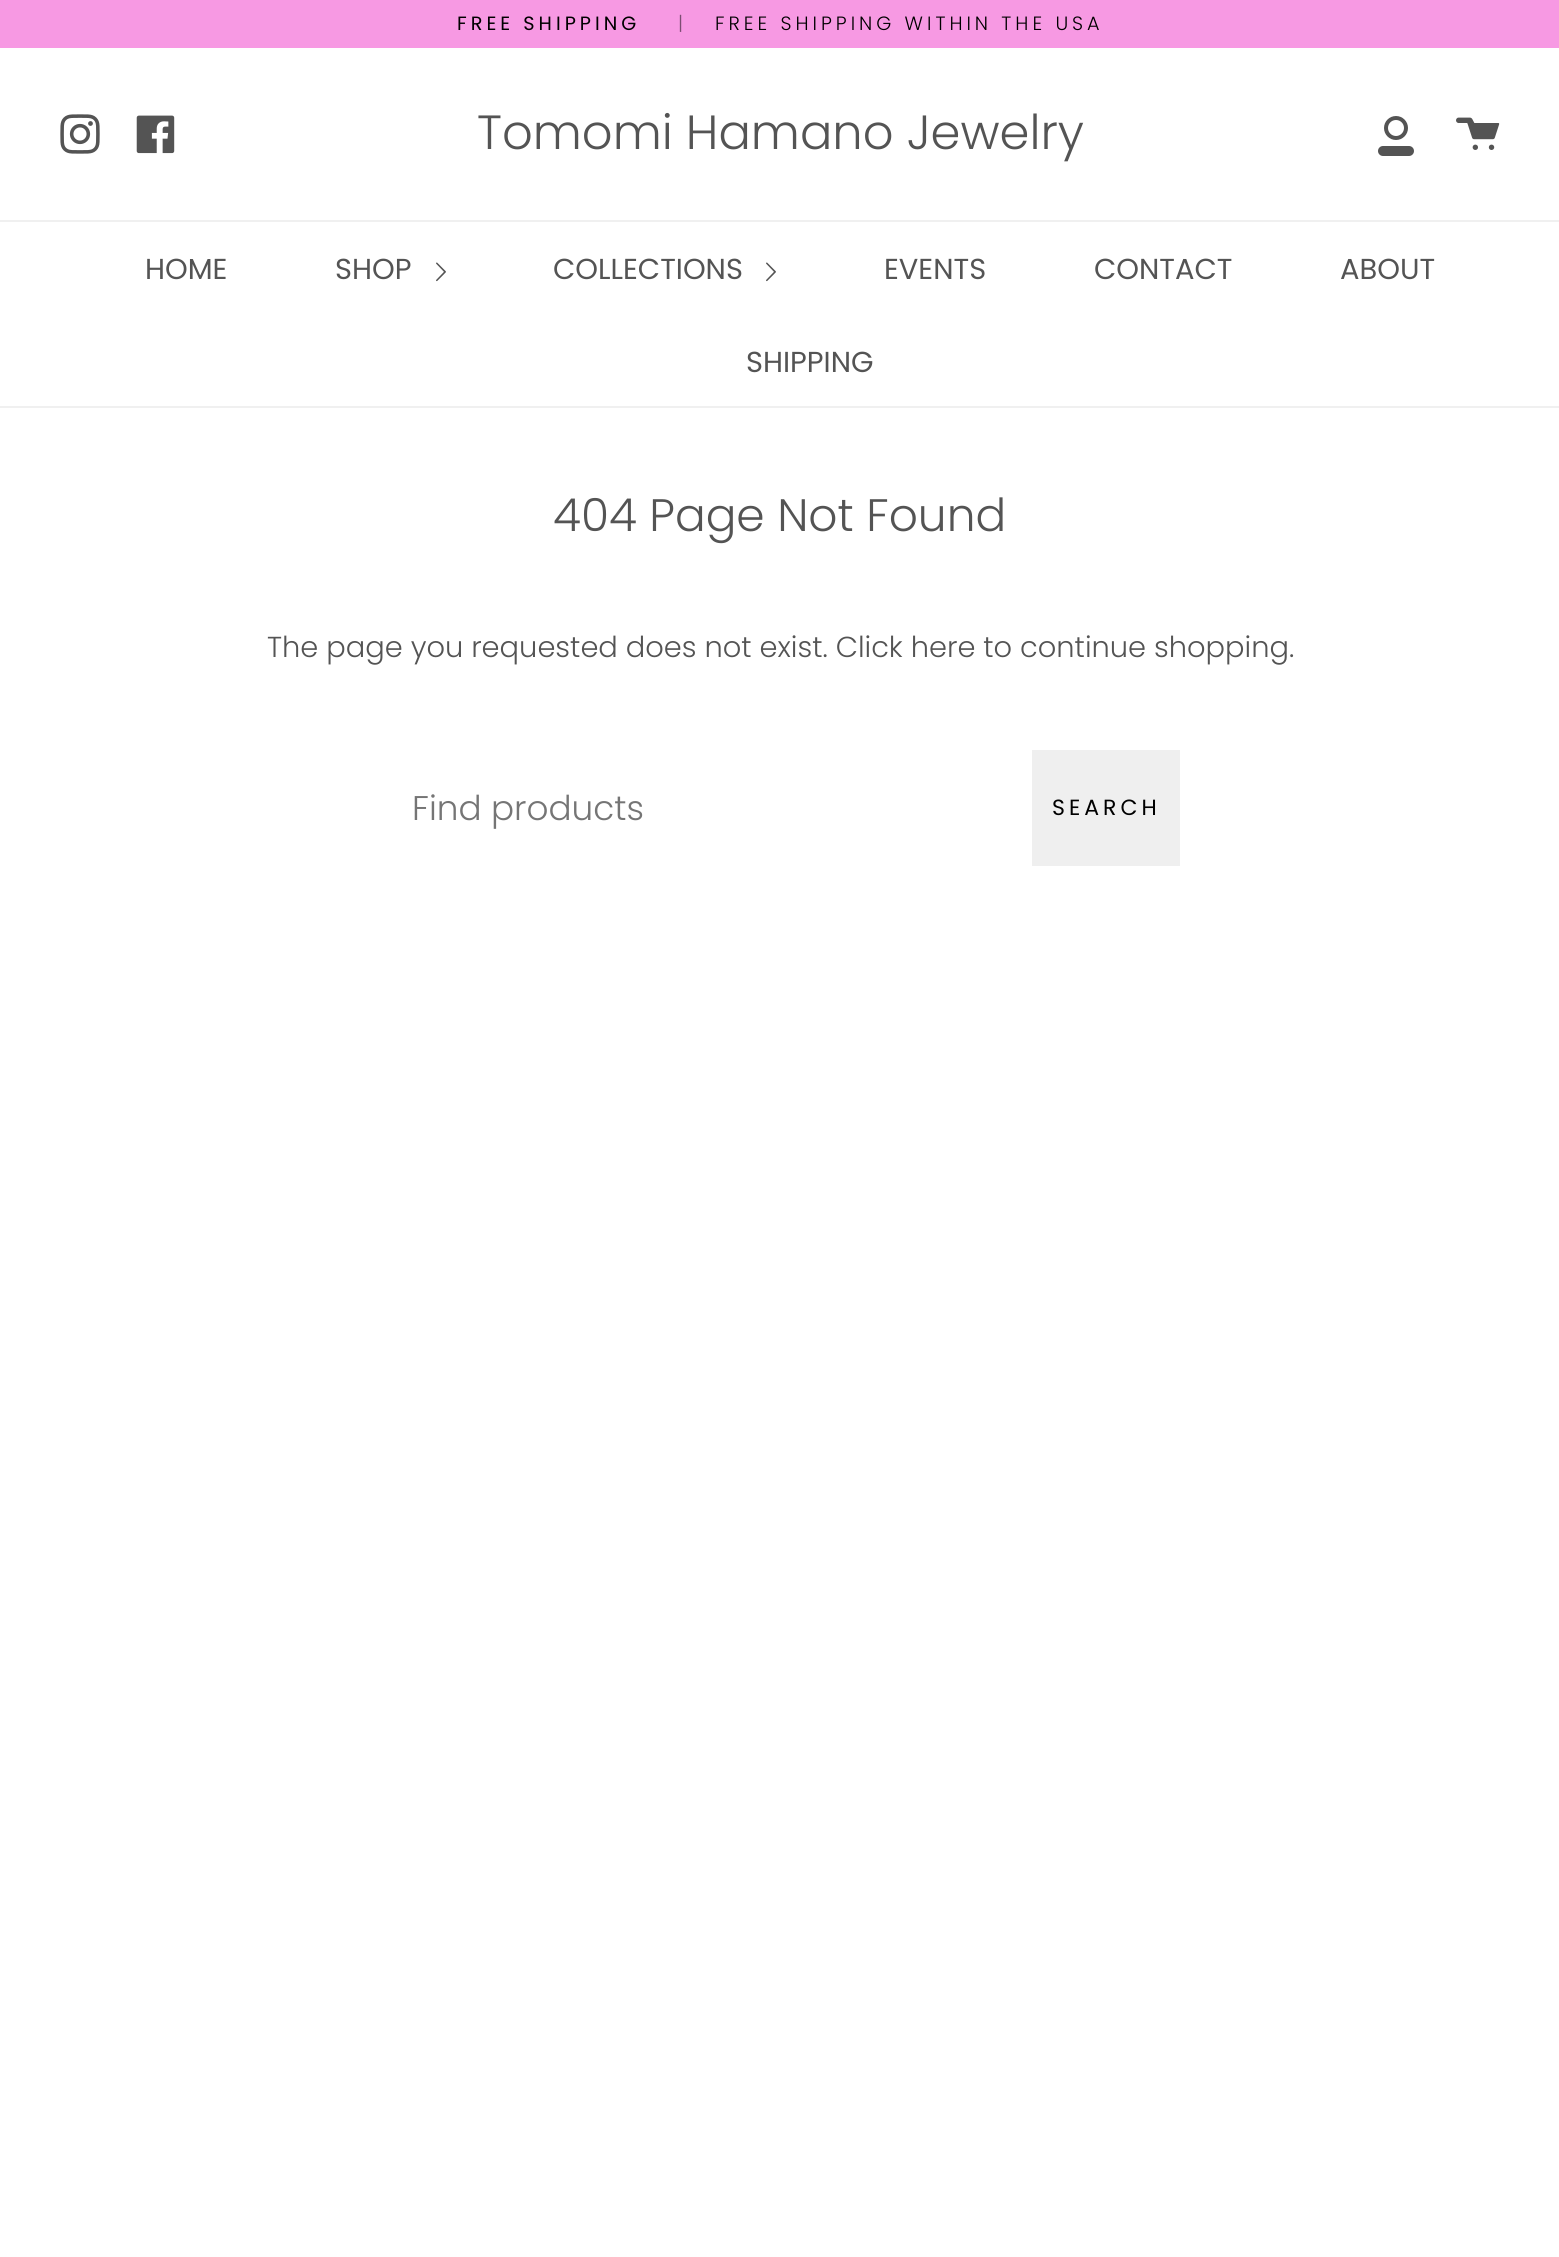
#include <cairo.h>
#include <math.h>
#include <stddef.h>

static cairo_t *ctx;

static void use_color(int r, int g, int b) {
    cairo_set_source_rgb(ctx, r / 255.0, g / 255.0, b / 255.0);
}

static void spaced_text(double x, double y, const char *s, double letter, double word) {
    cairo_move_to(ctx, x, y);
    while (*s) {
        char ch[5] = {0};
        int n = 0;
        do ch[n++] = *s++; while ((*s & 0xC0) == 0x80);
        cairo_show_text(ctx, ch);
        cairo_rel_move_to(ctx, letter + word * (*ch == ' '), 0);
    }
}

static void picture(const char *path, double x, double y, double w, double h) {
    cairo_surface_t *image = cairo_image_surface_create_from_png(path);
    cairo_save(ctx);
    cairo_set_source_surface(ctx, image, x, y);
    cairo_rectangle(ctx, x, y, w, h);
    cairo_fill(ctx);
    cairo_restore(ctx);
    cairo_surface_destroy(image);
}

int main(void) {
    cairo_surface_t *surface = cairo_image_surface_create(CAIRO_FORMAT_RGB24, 1559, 2257);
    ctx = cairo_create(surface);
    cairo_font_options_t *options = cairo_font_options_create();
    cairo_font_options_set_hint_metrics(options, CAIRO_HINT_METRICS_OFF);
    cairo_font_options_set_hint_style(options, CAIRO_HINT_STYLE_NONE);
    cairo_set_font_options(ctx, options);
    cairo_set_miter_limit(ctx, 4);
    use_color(255, 255, 255);
    cairo_paint(ctx);
    use_color(247, 153, 227);
    cairo_rectangle(ctx, 0, 0, 1559, 48);
    cairo_fill(ctx);
    cairo_select_font_face(ctx, "Poppins", CAIRO_FONT_SLANT_NORMAL, CAIRO_FONT_WEIGHT_NORMAL);
    cairo_set_font_size(ctx, 19.25);
    use_color(0, 0, 0);
    spaced_text(457, 30, "FREE SHIPPING", 4, 0);
    cairo_select_font_face(ctx, "Poppins Light", CAIRO_FONT_SLANT_NORMAL, CAIRO_FONT_WEIGHT_NORMAL);
    use_color(124, 77, 114);
    spaced_text(678, 30, "|", 4, 0);
    use_color(0, 0, 0);
    spaced_text(715, 30, "FREE SHIPPING WITHIN THE USA", 4, 0);
    picture("img1.png", 60, 114, 40, 40);
    picture("img2.png", 136, 115, 39, 39);
    cairo_set_font_size(ctx, 48);
    use_color(84, 84, 84);
    cairo_move_to(ctx, 477, 149);
    cairo_show_text(ctx, "Tomomi Hamano Jewelry");
    picture("img3.png", 1378, 116, 36, 40);
    picture("img4.png", 1456, 117, 44, 33);
    use_color(240, 240, 240);
    cairo_rectangle(ctx, 0, 220, 1559, 2);
    cairo_fill(ctx);
    cairo_rectangle(ctx, 0, 406, 1559, 2);
    cairo_fill(ctx);
    cairo_select_font_face(ctx, "Poppins", CAIRO_FONT_SLANT_NORMAL, CAIRO_FONT_WEIGHT_NORMAL);
    cairo_set_font_size(ctx, 28.9);
    use_color(84, 84, 84);
    cairo_move_to(ctx, 145, 279);
    cairo_show_text(ctx, "HOME");
    cairo_move_to(ctx, 335, 279);
    cairo_show_text(ctx, "SHOP");
    picture("img5.png", 436, 262, 10, 20);
    cairo_move_to(ctx, 553, 279);
    cairo_show_text(ctx, "COLLECTIONS");
    picture("img5.png", 766, 262, 10, 20);
    cairo_move_to(ctx, 884, 279);
    cairo_show_text(ctx, "EVENTS");
    cairo_move_to(ctx, 1094, 279);
    cairo_show_text(ctx, "CONTACT");
    cairo_move_to(ctx, 1340, 279);
    cairo_show_text(ctx, "ABOUT");
    cairo_move_to(ctx, 746, 372);
    cairo_show_text(ctx, "SHIPPING");
    cairo_select_font_face(ctx, "Poppins Light", CAIRO_FONT_SLANT_NORMAL, CAIRO_FONT_WEIGHT_NORMAL);
    cairo_set_font_size(ctx, 45.5);
    cairo_move_to(ctx, 553, 531);
    cairo_show_text(ctx, "404 Page Not Found");
    cairo_set_font_size(ctx, 28.9);
    cairo_move_to(ctx, 267, 657);
    cairo_show_text(ctx, "The page you requested does not exist. Click here to continue shopping.");
    cairo_set_font_size(ctx, 34.25);
    use_color(117, 117, 117);
    cairo_move_to(ctx, 412, 820);
    cairo_show_text(ctx, "Find products");
    use_color(239, 239, 239);
    cairo_rectangle(ctx, 1032, 750, 148, 116);
    cairo_fill(ctx);
    cairo_select_font_face(ctx, "Poppins", CAIRO_FONT_SLANT_NORMAL, CAIRO_FONT_WEIGHT_NORMAL);
    cairo_set_font_size(ctx, 22);
    use_color(0, 0, 0);
    spaced_text(1052, 815, "SEARCH", 4, 0);
    cairo_surface_write_to_png(surface, "result.png");
    cairo_font_options_destroy(options);
    cairo_destroy(ctx);
    cairo_surface_destroy(surface);
    return 0;
}
